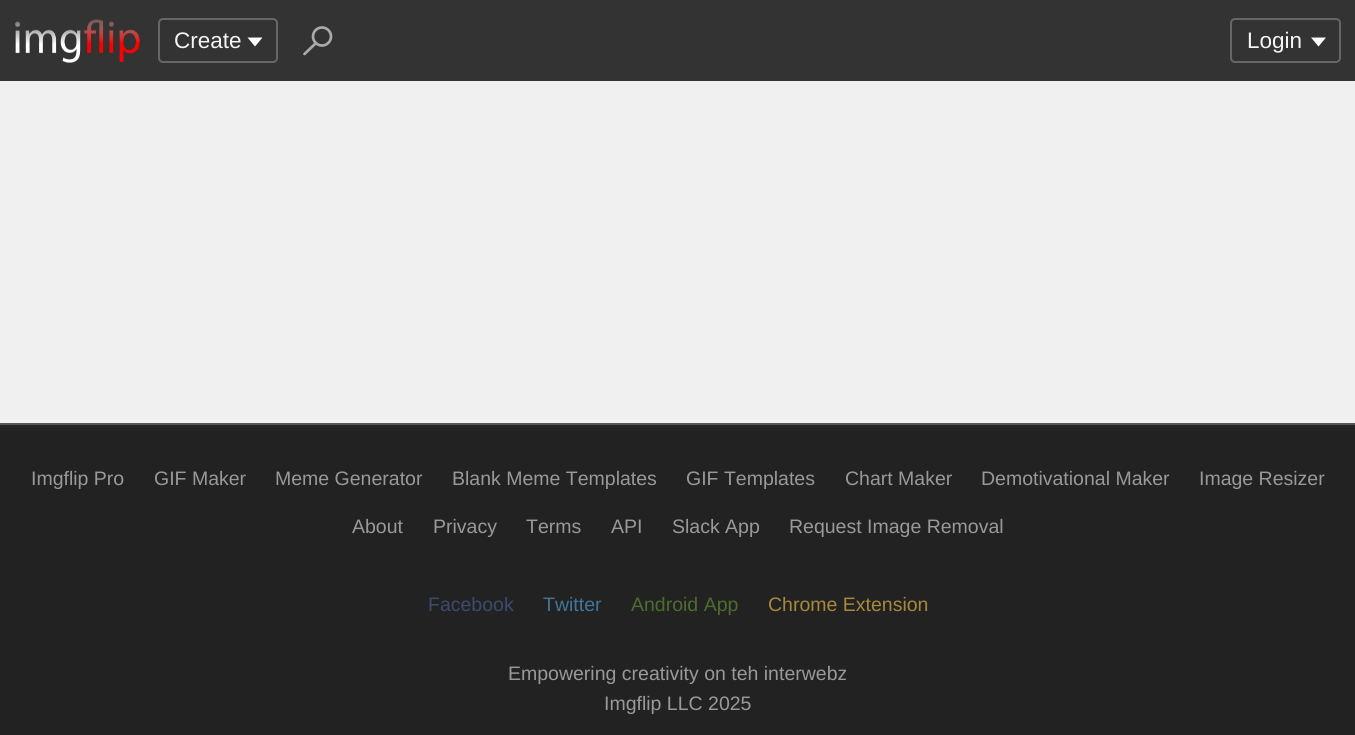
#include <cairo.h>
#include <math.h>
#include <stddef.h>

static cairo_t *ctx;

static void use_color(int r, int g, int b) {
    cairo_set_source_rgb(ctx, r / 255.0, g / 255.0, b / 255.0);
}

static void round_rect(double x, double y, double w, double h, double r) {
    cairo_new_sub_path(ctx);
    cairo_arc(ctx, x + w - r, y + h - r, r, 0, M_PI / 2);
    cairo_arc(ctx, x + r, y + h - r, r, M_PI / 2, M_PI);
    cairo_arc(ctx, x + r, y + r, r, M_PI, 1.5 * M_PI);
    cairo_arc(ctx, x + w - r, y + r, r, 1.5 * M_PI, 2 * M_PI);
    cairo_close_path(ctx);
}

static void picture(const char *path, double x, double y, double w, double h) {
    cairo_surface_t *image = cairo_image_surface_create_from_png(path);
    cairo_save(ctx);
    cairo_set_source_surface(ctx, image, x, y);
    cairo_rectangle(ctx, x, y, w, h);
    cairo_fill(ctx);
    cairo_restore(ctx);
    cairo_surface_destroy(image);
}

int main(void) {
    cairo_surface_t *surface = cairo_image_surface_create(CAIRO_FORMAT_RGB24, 1355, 735);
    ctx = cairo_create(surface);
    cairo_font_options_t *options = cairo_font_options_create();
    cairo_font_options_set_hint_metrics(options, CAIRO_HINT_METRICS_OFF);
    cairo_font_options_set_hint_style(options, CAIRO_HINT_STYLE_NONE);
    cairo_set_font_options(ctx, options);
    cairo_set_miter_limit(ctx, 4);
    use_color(240, 240, 240);
    cairo_paint(ctx);
    use_color(51, 51, 51);
    cairo_rectangle(ctx, 0, 0, 1355, 81);
    cairo_fill(ctx);
    picture("img1.png", 15, 19, 125, 44);
    round_rect(159, 19, 118, 43, 4);
    use_color(102, 102, 102);
    cairo_stroke(ctx);
    cairo_select_font_face(ctx, "Liberation Sans", CAIRO_FONT_SLANT_NORMAL, CAIRO_FONT_WEIGHT_NORMAL);
    cairo_set_font_size(ctx, 22.5);
    use_color(245, 245, 245);
    cairo_move_to(ctx, 174, 48);
    cairo_show_text(ctx, "Create");
    use_color(255, 255, 255);
    cairo_new_path(ctx);
    cairo_move_to(ctx, 247.5, 37.5);
    cairo_line_to(ctx, 262.5, 37.5);
    cairo_line_to(ctx, 255, 46.5);
    cairo_close_path(ctx);
    cairo_fill(ctx);
    cairo_new_path(ctx);
    cairo_move_to(ctx, 304.5, 54);
    cairo_line_to(ctx, 316, 43);
    use_color(170, 170, 170);
    cairo_set_line_width(ctx, 2.7);
    cairo_set_line_cap(ctx, CAIRO_LINE_CAP_ROUND);
    cairo_stroke(ctx);
    cairo_arc(ctx, 322, 36.5, 9, 0, 2 * M_PI);
    cairo_set_line_cap(ctx, CAIRO_LINE_CAP_BUTT);
    cairo_stroke(ctx);
    round_rect(1231, 19, 109, 43, 4);
    use_color(102, 102, 102);
    cairo_set_line_width(ctx, 2);
    cairo_stroke(ctx);
    use_color(245, 245, 245);
    cairo_move_to(ctx, 1247, 48);
    cairo_show_text(ctx, "Login");
    use_color(255, 255, 255);
    cairo_new_path(ctx);
    cairo_move_to(ctx, 1311, 37.5);
    cairo_line_to(ctx, 1326, 37.5);
    cairo_line_to(ctx, 1318.5, 46.5);
    cairo_close_path(ctx);
    cairo_fill(ctx);
    use_color(34, 34, 34);
    cairo_rectangle(ctx, 0, 425, 1355, 310);
    cairo_fill(ctx);
    use_color(85, 85, 85);
    cairo_rectangle(ctx, 0, 423, 1355, 2);
    cairo_fill(ctx);
    cairo_set_font_size(ctx, 19.5);
    use_color(153, 153, 153);
    cairo_move_to(ctx, 31, 485);
    cairo_show_text(ctx, "Imgflip Pro");
    cairo_move_to(ctx, 154, 485);
    cairo_show_text(ctx, "GIF Maker");
    cairo_move_to(ctx, 275, 485);
    cairo_show_text(ctx, "Meme Generator");
    cairo_move_to(ctx, 452, 485);
    cairo_show_text(ctx, "Blank Meme Templates");
    cairo_move_to(ctx, 686, 485);
    cairo_show_text(ctx, "GIF Templates");
    cairo_move_to(ctx, 845, 485);
    cairo_show_text(ctx, "Chart Maker");
    cairo_move_to(ctx, 981, 485);
    cairo_show_text(ctx, "Demotivational Maker");
    cairo_move_to(ctx, 1199, 485);
    cairo_show_text(ctx, "Image Resizer");
    cairo_move_to(ctx, 352, 533);
    cairo_show_text(ctx, "About");
    cairo_move_to(ctx, 433, 533);
    cairo_show_text(ctx, "Privacy");
    cairo_move_to(ctx, 526, 533);
    cairo_show_text(ctx, "Terms");
    cairo_move_to(ctx, 611, 533);
    cairo_show_text(ctx, "API");
    cairo_move_to(ctx, 672, 533);
    cairo_show_text(ctx, "Slack App");
    cairo_move_to(ctx, 789, 533);
    cairo_show_text(ctx, "Request Image Removal");
    use_color(59, 75, 112);
    cairo_move_to(ctx, 428, 611);
    cairo_show_text(ctx, "Facebook");
    use_color(65, 117, 156);
    cairo_move_to(ctx, 543, 611);
    cairo_show_text(ctx, "Twitter");
    use_color(76, 109, 47);
    cairo_move_to(ctx, 631, 611);
    cairo_show_text(ctx, "Android App");
    use_color(167, 137, 56);
    cairo_move_to(ctx, 768, 611);
    cairo_show_text(ctx, "Chrome Extension");
    use_color(153, 153, 153);
    cairo_move_to(ctx, 508, 680);
    cairo_show_text(ctx, "Empowering creativity on teh interwebz");
    cairo_move_to(ctx, 604, 710);
    cairo_show_text(ctx, "Imgflip LLC 2025");
    cairo_surface_write_to_png(surface, "result.png");
    cairo_font_options_destroy(options);
    cairo_destroy(ctx);
    cairo_surface_destroy(surface);
    return 0;
}
